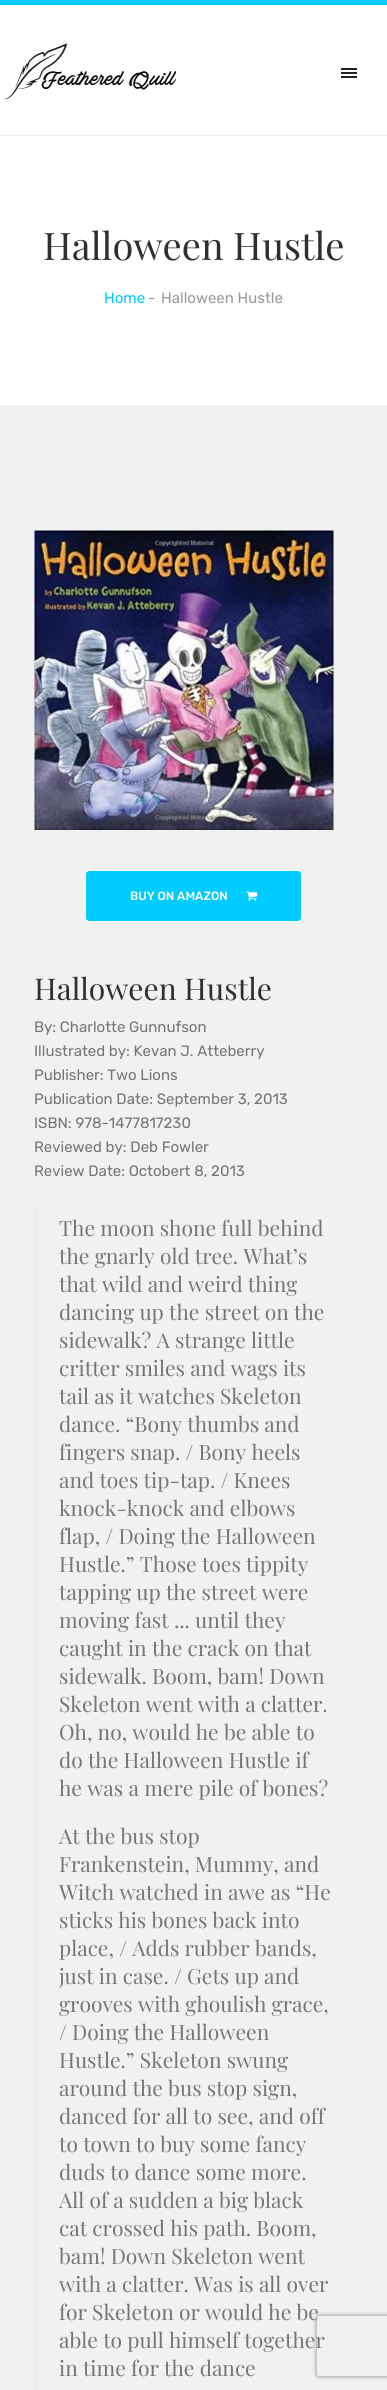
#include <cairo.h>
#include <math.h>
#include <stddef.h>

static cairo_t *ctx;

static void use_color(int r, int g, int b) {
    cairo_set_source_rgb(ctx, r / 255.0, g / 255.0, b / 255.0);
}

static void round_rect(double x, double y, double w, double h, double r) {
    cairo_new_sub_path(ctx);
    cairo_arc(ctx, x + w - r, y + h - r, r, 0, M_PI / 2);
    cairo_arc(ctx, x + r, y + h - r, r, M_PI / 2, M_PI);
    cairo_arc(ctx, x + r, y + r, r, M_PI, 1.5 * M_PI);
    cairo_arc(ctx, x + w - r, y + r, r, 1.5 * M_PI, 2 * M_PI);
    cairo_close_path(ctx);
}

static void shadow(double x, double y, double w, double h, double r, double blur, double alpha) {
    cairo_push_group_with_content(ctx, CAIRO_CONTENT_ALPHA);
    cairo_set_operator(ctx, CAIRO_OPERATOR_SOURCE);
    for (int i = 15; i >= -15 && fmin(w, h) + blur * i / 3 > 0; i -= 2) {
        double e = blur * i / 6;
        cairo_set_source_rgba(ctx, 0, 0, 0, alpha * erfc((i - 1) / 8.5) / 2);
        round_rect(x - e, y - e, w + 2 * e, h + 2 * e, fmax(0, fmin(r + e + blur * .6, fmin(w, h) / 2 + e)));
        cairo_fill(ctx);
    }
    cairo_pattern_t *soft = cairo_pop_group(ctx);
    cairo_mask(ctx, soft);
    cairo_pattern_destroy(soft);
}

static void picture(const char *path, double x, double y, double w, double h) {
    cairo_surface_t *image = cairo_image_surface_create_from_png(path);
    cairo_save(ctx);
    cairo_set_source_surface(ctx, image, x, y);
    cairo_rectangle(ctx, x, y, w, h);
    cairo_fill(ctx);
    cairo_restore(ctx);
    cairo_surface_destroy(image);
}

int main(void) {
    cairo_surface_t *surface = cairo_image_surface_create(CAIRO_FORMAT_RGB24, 387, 2390);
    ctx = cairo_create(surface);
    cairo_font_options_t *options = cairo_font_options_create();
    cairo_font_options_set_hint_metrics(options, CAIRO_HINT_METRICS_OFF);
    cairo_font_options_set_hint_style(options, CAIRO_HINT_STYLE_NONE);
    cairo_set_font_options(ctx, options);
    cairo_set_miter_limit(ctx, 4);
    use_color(255, 255, 255);
    cairo_paint(ctx);
    use_color(0, 204, 255);
    cairo_rectangle(ctx, 0, 0, 387, 5);
    cairo_fill(ctx);
    use_color(238, 238, 238);
    cairo_rectangle(ctx, 0, 135, 387, 1);
    cairo_fill(ctx);
    picture("img1.png", 4, 43, 172, 57);
    use_color(34, 34, 34);
    cairo_rectangle(ctx, 341, 68, 16, 2);
    cairo_fill(ctx);
    cairo_rectangle(ctx, 341, 72, 16, 2);
    cairo_fill(ctx);
    cairo_rectangle(ctx, 341, 76, 16, 2);
    cairo_fill(ctx);
    cairo_select_font_face(ctx, "Playfair Display", CAIRO_FONT_SLANT_NORMAL, CAIRO_FONT_WEIGHT_NORMAL);
    cairo_set_font_size(ctx, 38);
    use_color(44, 47, 51);
    cairo_move_to(ctx, 43, 260);
    cairo_show_text(ctx, "Halloween Hustle");
    cairo_select_font_face(ctx, "Rubik", CAIRO_FONT_SLANT_NORMAL, CAIRO_FONT_WEIGHT_NORMAL);
    cairo_set_font_size(ctx, 15);
    use_color(0, 204, 255);
    cairo_move_to(ctx, 104, 303);
    cairo_show_text(ctx, "Home");
    use_color(153, 153, 153);
    cairo_move_to(ctx, 148, 303);
    cairo_show_text(ctx, "-");
    cairo_move_to(ctx, 161, 303);
    cairo_show_text(ctx, "Halloween Hustle");
    use_color(242, 241, 241);
    cairo_rectangle(ctx, 0, 405, 387, 1985);
    cairo_fill(ctx);
    picture("img2.png", 34, 530, 300, 300);
    use_color(0, 204, 255);
    round_rect(85.5, 870.5, 216, 51, 3.5);
    cairo_fill_preserve(ctx);
    use_color(255, 255, 255);
    cairo_set_line_width(ctx, 1);
    cairo_stroke(ctx);
    cairo_select_font_face(ctx, "Rubik Medium", CAIRO_FONT_SLANT_NORMAL, CAIRO_FONT_WEIGHT_NORMAL);
    cairo_set_font_size(ctx, 12);
    cairo_move_to(ctx, 130, 900);
    cairo_show_text(ctx, "BUY ON AMAZON");
    picture("img3.png", 246, 891, 12, 10);
    cairo_select_font_face(ctx, "Playfair Display", CAIRO_FONT_SLANT_NORMAL, CAIRO_FONT_WEIGHT_NORMAL);
    cairo_set_font_size(ctx, 30);
    use_color(44, 47, 51);
    cairo_move_to(ctx, 34, 1000);
    cairo_show_text(ctx, "Halloween Hustle");
    cairo_select_font_face(ctx, "Rubik", CAIRO_FONT_SLANT_NORMAL, CAIRO_FONT_WEIGHT_NORMAL);
    cairo_set_font_size(ctx, 15);
    use_color(117, 117, 117);
    cairo_move_to(ctx, 34, 1032);
    cairo_show_text(ctx, "By: Charlotte Gunnufson");
    cairo_move_to(ctx, 34, 1056);
    cairo_show_text(ctx, "Illustrated by: Kevan J. Atteberry");
    cairo_move_to(ctx, 34, 1080);
    cairo_show_text(ctx, "Publisher: Two Lions");
    cairo_move_to(ctx, 34, 1104);
    cairo_show_text(ctx, "Publication Date: September 3, 2013");
    cairo_move_to(ctx, 34, 1128);
    cairo_show_text(ctx, "ISBN: 978-1477817230");
    cairo_move_to(ctx, 34, 1152);
    cairo_show_text(ctx, "Reviewed by: Deb Fowler");
    cairo_move_to(ctx, 34, 1176);
    cairo_show_text(ctx, "Review Date: Octobert 8, 2013");
    use_color(238, 238, 238);
    cairo_rectangle(ctx, 34, 1203, 5, 1187);
    cairo_fill(ctx);
    cairo_select_font_face(ctx, "Playfair Display", CAIRO_FONT_SLANT_NORMAL, CAIRO_FONT_WEIGHT_NORMAL);
    cairo_set_font_size(ctx, 21);
    use_color(117, 117, 117);
    cairo_move_to(ctx, 59, 1236);
    cairo_show_text(ctx, "The moon shone full behind");
    cairo_move_to(ctx, 59, 1264);
    cairo_show_text(ctx, "the gnarly old tree. What’s");
    cairo_move_to(ctx, 59, 1292);
    cairo_show_text(ctx, "that wild and weird thing");
    cairo_move_to(ctx, 59, 1320);
    cairo_show_text(ctx, "dancing up the street on the");
    cairo_move_to(ctx, 59, 1348);
    cairo_show_text(ctx, "sidewalk? A strange little");
    cairo_move_to(ctx, 59, 1376);
    cairo_show_text(ctx, "critter smiles and wags its");
    cairo_move_to(ctx, 59, 1404);
    cairo_show_text(ctx, "tail as it watches Skeleton");
    cairo_move_to(ctx, 59, 1432);
    cairo_show_text(ctx, "dance. “Bony thumbs and");
    cairo_move_to(ctx, 59, 1460);
    cairo_show_text(ctx, "fingers snap. / Bony heels");
    cairo_move_to(ctx, 59, 1488);
    cairo_show_text(ctx, "and toes tip-tap. / Knees");
    cairo_move_to(ctx, 59, 1516);
    cairo_show_text(ctx, "knock-knock and elbows");
    cairo_move_to(ctx, 59, 1544);
    cairo_show_text(ctx, "flap, / Doing the Halloween");
    cairo_move_to(ctx, 59, 1572);
    cairo_show_text(ctx, "Hustle.” Those toes tippity");
    cairo_move_to(ctx, 59, 1600);
    cairo_show_text(ctx, "tapping up the street were");
    cairo_move_to(ctx, 59, 1628);
    cairo_show_text(ctx, "moving fast ... until they");
    cairo_move_to(ctx, 59, 1656);
    cairo_show_text(ctx, "caught in the crack on that");
    cairo_move_to(ctx, 59, 1684);
    cairo_show_text(ctx, "sidewalk. Boom, bam! Down");
    cairo_move_to(ctx, 59, 1712);
    cairo_show_text(ctx, "Skeleton went with a clatter.");
    cairo_move_to(ctx, 59, 1740);
    cairo_show_text(ctx, "Oh, no, would he be able to");
    cairo_move_to(ctx, 59, 1768);
    cairo_show_text(ctx, "do the Halloween Hustle if");
    cairo_move_to(ctx, 59, 1796);
    cairo_show_text(ctx, "he was a mere pile of bones?");
    cairo_move_to(ctx, 59, 1844);
    cairo_show_text(ctx, "At the bus stop");
    cairo_move_to(ctx, 59, 1872);
    cairo_show_text(ctx, "Frankenstein, Mummy, and");
    cairo_move_to(ctx, 59, 1900);
    cairo_show_text(ctx, "Witch watched in awe as “He");
    cairo_move_to(ctx, 59, 1928);
    cairo_show_text(ctx, "sticks his bones back into");
    cairo_move_to(ctx, 59, 1956);
    cairo_show_text(ctx, "place, / Adds rubber bands,");
    cairo_move_to(ctx, 59, 1984);
    cairo_show_text(ctx, "just in case. / Gets up and");
    cairo_move_to(ctx, 59, 2012);
    cairo_show_text(ctx, "grooves with ghoulish grace,");
    cairo_move_to(ctx, 59, 2040);
    cairo_show_text(ctx, "/ Doing the Halloween");
    cairo_move_to(ctx, 59, 2068);
    cairo_show_text(ctx, "Hustle.” Skeleton swung");
    cairo_move_to(ctx, 59, 2096);
    cairo_show_text(ctx, "around the bus stop sign,");
    cairo_move_to(ctx, 59, 2124);
    cairo_show_text(ctx, "danced for all to see, and off");
    cairo_move_to(ctx, 59, 2152);
    cairo_show_text(ctx, "to town to buy some fancy");
    cairo_move_to(ctx, 59, 2180);
    cairo_show_text(ctx, "duds to dance some more.");
    cairo_move_to(ctx, 59, 2208);
    cairo_show_text(ctx, "All of a sudden a big black");
    cairo_move_to(ctx, 59, 2236);
    cairo_show_text(ctx, "cat crossed his path. Boom,");
    cairo_move_to(ctx, 59, 2264);
    cairo_show_text(ctx, "bam! Down Skeleton went");
    cairo_move_to(ctx, 59, 2292);
    cairo_show_text(ctx, "with a clatter. Was is all over");
    cairo_move_to(ctx, 59, 2320);
    cairo_show_text(ctx, "for Skeleton or would he be");
    cairo_move_to(ctx, 59, 2348);
    cairo_show_text(ctx, "able to pull himself together");
    cairo_move_to(ctx, 59, 2376);
    cairo_show_text(ctx, "in time for the dance");
    cairo_save(ctx);
    cairo_set_fill_rule(ctx, CAIRO_FILL_RULE_EVEN_ODD);
    cairo_new_path(ctx);
    cairo_move_to(ctx, 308, 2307);
    cairo_line_to(ctx, 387, 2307);
    cairo_line_to(ctx, 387, 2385);
    cairo_line_to(ctx, 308, 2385);
    cairo_close_path(ctx);
    cairo_move_to(ctx, 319, 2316);
    cairo_line_to(ctx, 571, 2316);
    cairo_curve_to(ctx, 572, 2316, 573, 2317, 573, 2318);
    cairo_line_to(ctx, 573, 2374);
    cairo_curve_to(ctx, 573, 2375, 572, 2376, 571, 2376);
    cairo_line_to(ctx, 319, 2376);
    cairo_curve_to(ctx, 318, 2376, 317, 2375, 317, 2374);
    cairo_line_to(ctx, 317, 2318);
    cairo_curve_to(ctx, 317, 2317, 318, 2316, 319, 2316);
    cairo_close_path(ctx);
    cairo_clip(ctx);
    use_color(128, 128, 128);
    shadow(317, 2316, 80, 60, 2, 2.5, 1);
    cairo_restore(ctx);
    cairo_surface_write_to_png(surface, "result.png");
    cairo_font_options_destroy(options);
    cairo_destroy(ctx);
    cairo_surface_destroy(surface);
    return 0;
}
